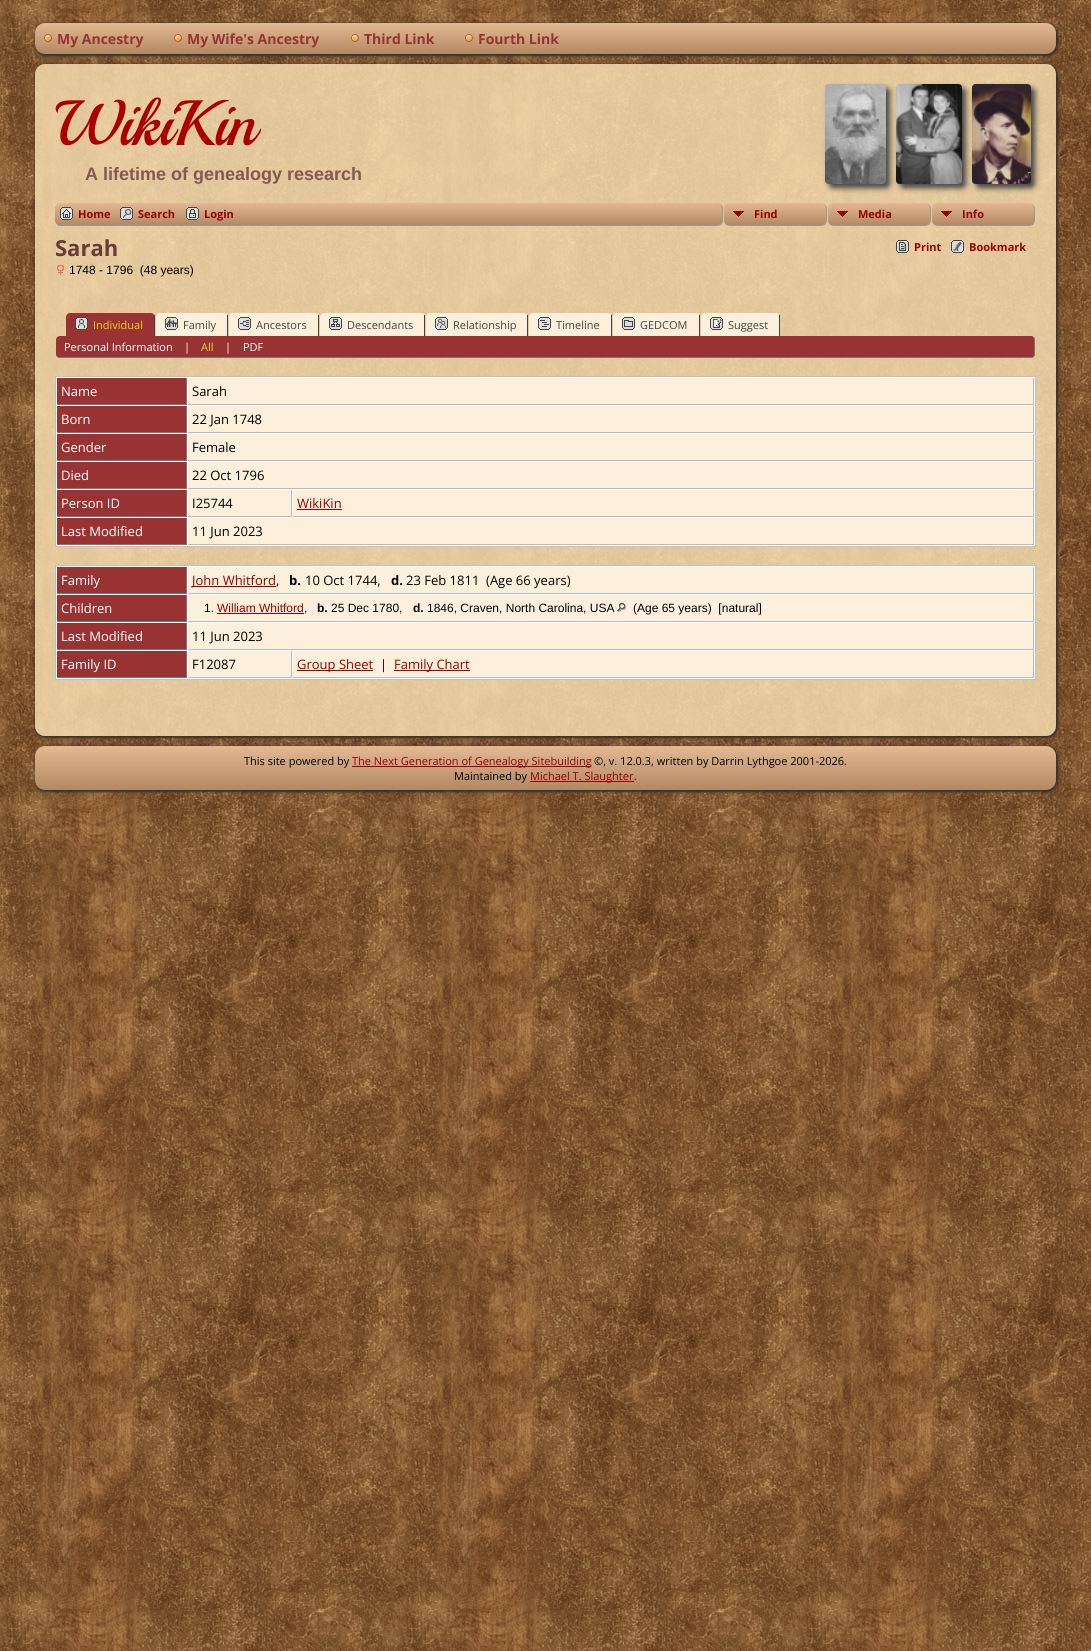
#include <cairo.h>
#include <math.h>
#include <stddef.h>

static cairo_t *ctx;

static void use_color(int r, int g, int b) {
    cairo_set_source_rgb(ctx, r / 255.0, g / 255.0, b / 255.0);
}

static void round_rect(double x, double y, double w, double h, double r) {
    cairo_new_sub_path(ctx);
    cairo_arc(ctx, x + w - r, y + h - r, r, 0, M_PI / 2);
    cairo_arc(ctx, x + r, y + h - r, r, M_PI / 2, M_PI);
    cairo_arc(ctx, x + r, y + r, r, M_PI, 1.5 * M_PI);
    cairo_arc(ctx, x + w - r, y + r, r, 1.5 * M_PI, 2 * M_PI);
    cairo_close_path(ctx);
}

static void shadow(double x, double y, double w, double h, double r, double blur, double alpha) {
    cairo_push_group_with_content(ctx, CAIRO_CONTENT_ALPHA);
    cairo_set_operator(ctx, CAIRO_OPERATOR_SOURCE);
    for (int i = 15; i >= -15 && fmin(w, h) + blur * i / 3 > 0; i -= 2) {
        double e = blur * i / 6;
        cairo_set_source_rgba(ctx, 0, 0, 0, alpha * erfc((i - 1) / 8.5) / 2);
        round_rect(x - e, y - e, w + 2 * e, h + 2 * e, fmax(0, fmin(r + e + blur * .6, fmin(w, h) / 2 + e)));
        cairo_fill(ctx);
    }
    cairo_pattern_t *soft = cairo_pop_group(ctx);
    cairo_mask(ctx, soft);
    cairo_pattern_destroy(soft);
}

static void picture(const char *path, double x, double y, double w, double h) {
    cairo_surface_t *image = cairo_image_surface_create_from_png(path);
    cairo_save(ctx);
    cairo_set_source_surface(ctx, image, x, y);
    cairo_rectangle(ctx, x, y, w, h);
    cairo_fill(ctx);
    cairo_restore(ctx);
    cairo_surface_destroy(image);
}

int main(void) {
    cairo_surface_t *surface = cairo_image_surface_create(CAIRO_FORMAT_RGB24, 1091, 1651);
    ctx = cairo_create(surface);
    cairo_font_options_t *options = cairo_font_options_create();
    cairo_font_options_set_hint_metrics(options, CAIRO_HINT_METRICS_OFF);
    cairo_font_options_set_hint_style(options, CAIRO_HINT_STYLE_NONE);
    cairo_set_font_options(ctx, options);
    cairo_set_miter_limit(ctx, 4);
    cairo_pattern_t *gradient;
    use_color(255, 255, 255);
    cairo_paint(ctx);
    picture("img1.png", 0, 0, 1091, 1651);
    use_color(51, 51, 51);
    shadow(35, 23, 1023, 33, 11, 1, 1);
    gradient = cairo_pattern_create_linear(546, 23, 546, 54);
    cairo_pattern_add_color_stop_rgba(gradient, 0, 0.886, 0.725, 0.576, 1);
    cairo_pattern_add_color_stop_rgba(gradient, 1, 0.698, 0.537, 0.388, 1);
    cairo_set_source(ctx, gradient);
    cairo_pattern_destroy(gradient);
    round_rect(35, 23, 1021, 31, 10);
    cairo_fill(ctx);
    picture("img2.png", 44, 34, 8, 8);
    cairo_select_font_face(ctx, "Open Sans", CAIRO_FONT_SLANT_NORMAL, CAIRO_FONT_WEIGHT_BOLD);
    cairo_set_font_size(ctx, 14);
    use_color(153, 51, 51);
    cairo_move_to(ctx, 57, 44);
    cairo_show_text(ctx, "My Ancestry");
    picture("img2.png", 174, 34, 8, 8);
    cairo_move_to(ctx, 187, 44);
    cairo_show_text(ctx, "My Wife's Ancestry");
    picture("img2.png", 351, 34, 8, 8);
    cairo_move_to(ctx, 364, 44);
    cairo_show_text(ctx, "Third Link");
    picture("img2.png", 465, 34, 8, 8);
    cairo_move_to(ctx, 478, 44);
    cairo_show_text(ctx, "Fourth Link");
    cairo_save(ctx);
    cairo_set_fill_rule(ctx, CAIRO_FILL_RULE_EVEN_ODD);
    cairo_new_path(ctx);
    cairo_move_to(ctx, 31, 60);
    cairo_line_to(ctx, 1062, 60);
    cairo_line_to(ctx, 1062, 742);
    cairo_line_to(ctx, 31, 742);
    cairo_close_path(ctx);
    cairo_move_to(ctx, 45, 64);
    cairo_line_to(ctx, 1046, 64);
    cairo_curve_to(ctx, 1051.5, 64, 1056, 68.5, 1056, 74);
    cairo_line_to(ctx, 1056, 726);
    cairo_curve_to(ctx, 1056, 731.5, 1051.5, 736, 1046, 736);
    cairo_line_to(ctx, 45, 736);
    cairo_curve_to(ctx, 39.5, 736, 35, 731.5, 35, 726);
    cairo_line_to(ctx, 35, 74);
    cairo_curve_to(ctx, 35, 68.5, 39.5, 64, 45, 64);
    cairo_close_path(ctx);
    cairo_clip(ctx);
    use_color(51, 51, 51);
    shadow(35, 64, 1023, 674, 11, 1, 1);
    cairo_restore(ctx);
    cairo_set_source_rgba(ctx, 0.992, 0.902, 0.722, 0.8);
    round_rect(35, 64, 1021, 672, 10);
    cairo_fill(ctx);
    cairo_select_font_face(ctx, "Playball", CAIRO_FONT_SLANT_NORMAL, CAIRO_FONT_WEIGHT_NORMAL);
    cairo_set_font_size(ctx, 64);
    use_color(170, 0, 0);
    cairo_move_to(ctx, 55, 145);
    cairo_show_text(ctx, "WikiKin");
    use_color(68, 68, 68);
    shadow(976, 88, 59, 100, 4, 3, 1);
    picture("img5.png", 972, 84, 59, 100);
    shadow(900, 88, 66, 100, 4, 3, 1);
    picture("img4.png", 896, 84, 66, 100);
    shadow(829, 88, 61, 100, 4, 3, 1);
    picture("img3.png", 825, 84, 61, 100);
    cairo_select_font_face(ctx, "Liberation Sans", CAIRO_FONT_SLANT_NORMAL, CAIRO_FONT_WEIGHT_BOLD);
    cairo_set_font_size(ctx, 18);
    use_color(130, 89, 83);
    cairo_move_to(ctx, 85, 180);
    cairo_show_text(ctx, "A lifetime of genealogy research");
    use_color(226, 185, 147);
    round_rect(55, 203, 981, 23, 6);
    cairo_fill(ctx);
    cairo_save(ctx);
    round_rect(55, 203, 981, 23, 6);
    cairo_clip(ctx);
    gradient = cairo_pattern_create_linear(546, 203, 546, 225);
    cairo_pattern_add_color_stop_rgba(gradient, 0, 0.886, 0.725, 0.576, 1);
    cairo_pattern_add_color_stop_rgba(gradient, 1, 0.698, 0.537, 0.388, 1);
    cairo_set_source(ctx, gradient);
    cairo_pattern_destroy(gradient);
    cairo_new_path(ctx);
    cairo_move_to(ctx, 61, 203);
    cairo_line_to(ctx, 1030, 203);
    cairo_curve_to(ctx, 1033.5, 203, 1036, 205.5, 1036, 209);
    cairo_line_to(ctx, 1036, 225);
    cairo_line_to(ctx, 55, 225);
    cairo_line_to(ctx, 55, 209);
    cairo_curve_to(ctx, 55, 205.5, 57.5, 203, 61, 203);
    cairo_close_path(ctx);
    cairo_fill(ctx);
    cairo_restore(ctx);
    use_color(153, 153, 153);
    cairo_rectangle(ctx, 58, 225, 654, 1);
    cairo_fill(ctx);
    picture("img6.png", 60, 207, 13, 15);
    cairo_select_font_face(ctx, "Open Sans", CAIRO_FONT_SLANT_NORMAL, CAIRO_FONT_WEIGHT_BOLD);
    cairo_set_font_size(ctx, 11);
    use_color(153, 0, 0);
    cairo_move_to(ctx, 78, 218);
    cairo_show_text(ctx, "Home");
    picture("img7.png", 120, 207, 13, 15);
    cairo_move_to(ctx, 138, 218);
    cairo_show_text(ctx, "Search");
    picture("img8.png", 186, 207, 13, 15);
    cairo_move_to(ctx, 204, 218);
    cairo_show_text(ctx, "Login");
    use_color(223, 201, 158);
    cairo_rectangle(ctx, 717, 203, 319, 23);
    cairo_fill(ctx);
    cairo_save(ctx);
    cairo_new_path(ctx);
    cairo_move_to(ctx, 712, 203);
    cairo_line_to(ctx, 717, 203);
    cairo_curve_to(ctx, 720.5, 203, 723, 205.5, 723, 209);
    cairo_line_to(ctx, 723, 220);
    cairo_curve_to(ctx, 723, 223.5, 720.5, 226, 717, 226);
    cairo_line_to(ctx, 712, 226);
    cairo_close_path(ctx);
    cairo_clip(ctx);
    gradient = cairo_pattern_create_linear(717, 203, 717, 225);
    cairo_pattern_add_color_stop_rgba(gradient, 0, 0.886, 0.725, 0.576, 1);
    cairo_pattern_add_color_stop_rgba(gradient, 1, 0.698, 0.537, 0.388, 1);
    cairo_set_source(ctx, gradient);
    cairo_pattern_destroy(gradient);
    cairo_rectangle(ctx, 712, 203, 11, 22);
    cairo_fill(ctx);
    gradient = cairo_pattern_create_linear(717, 225, 717, 247);
    cairo_pattern_add_color_stop_rgba(gradient, 0, 0.886, 0.725, 0.576, 1);
    cairo_pattern_add_color_stop_rgba(gradient, 1, 0.698, 0.537, 0.388, 1);
    cairo_set_source(ctx, gradient);
    cairo_pattern_destroy(gradient);
    cairo_rectangle(ctx, 712, 225, 11, 1);
    cairo_fill(ctx);
    cairo_restore(ctx);
    use_color(153, 153, 153);
    cairo_set_fill_rule(ctx, CAIRO_FILL_RULE_EVEN_ODD);
    cairo_new_path(ctx);
    cairo_move_to(ctx, 712, 203);
    cairo_curve_to(ctx, 716, 203, 722, 202.5, 723, 208);
    cairo_line_to(ctx, 723, 221);
    cairo_curve_to(ctx, 722, 226.5, 716, 226, 712, 226);
    cairo_close_path(ctx);
    cairo_move_to(ctx, 712, 203);
    cairo_line_to(ctx, 718, 203);
    cairo_curve_to(ctx, 723, 204.5, 722, 211, 722, 214.5);
    cairo_curve_to(ctx, 722, 224.5, 721.5, 225, 712, 225);
    cairo_close_path(ctx);
    cairo_fill(ctx);
    use_color(226, 185, 147);
    round_rect(724, 203, 103, 23, 6);
    cairo_fill(ctx);
    picture("img9.png", 724, 204, 102, 21);
    use_color(153, 153, 153);
    cairo_new_path(ctx);
    cairo_move_to(ctx, 730, 203);
    cairo_line_to(ctx, 821, 203);
    cairo_curve_to(ctx, 824, 203, 827, 206, 827, 209);
    cairo_line_to(ctx, 827, 220);
    cairo_curve_to(ctx, 827, 223, 824, 226, 821, 226);
    cairo_line_to(ctx, 730, 226);
    cairo_curve_to(ctx, 727, 226, 724, 223, 724, 220);
    cairo_line_to(ctx, 724, 209);
    cairo_curve_to(ctx, 724, 206, 727, 203, 730, 203);
    cairo_close_path(ctx);
    cairo_move_to(ctx, 730, 203);
    cairo_line_to(ctx, 821, 203);
    cairo_curve_to(ctx, 824, 203, 826, 206, 826, 209);
    cairo_line_to(ctx, 826, 220);
    cairo_curve_to(ctx, 826, 223, 824, 225, 821, 225);
    cairo_line_to(ctx, 730, 225);
    cairo_curve_to(ctx, 727, 225, 724, 223, 724, 220);
    cairo_line_to(ctx, 724, 209);
    cairo_curve_to(ctx, 724, 206, 727, 203, 730, 203);
    cairo_close_path(ctx);
    cairo_fill(ctx);
    use_color(153, 0, 0);
    cairo_move_to(ctx, 754, 218);
    cairo_show_text(ctx, "Find");
    use_color(226, 185, 147);
    round_rect(828, 203, 103, 23, 6);
    cairo_fill(ctx);
    picture("img10.png", 828, 204, 102, 21);
    use_color(153, 153, 153);
    cairo_new_path(ctx);
    cairo_move_to(ctx, 834, 203);
    cairo_line_to(ctx, 925, 203);
    cairo_curve_to(ctx, 928, 203, 931, 206, 931, 209);
    cairo_line_to(ctx, 931, 220);
    cairo_curve_to(ctx, 931, 223, 928, 226, 925, 226);
    cairo_line_to(ctx, 834, 226);
    cairo_curve_to(ctx, 831, 226, 828, 223, 828, 220);
    cairo_line_to(ctx, 828, 209);
    cairo_curve_to(ctx, 828, 206, 831, 203, 834, 203);
    cairo_close_path(ctx);
    cairo_move_to(ctx, 834, 203);
    cairo_line_to(ctx, 925, 203);
    cairo_curve_to(ctx, 928, 203, 930, 206, 930, 209);
    cairo_line_to(ctx, 930, 220);
    cairo_curve_to(ctx, 930, 223, 928, 225, 925, 225);
    cairo_line_to(ctx, 834, 225);
    cairo_curve_to(ctx, 831, 225, 828, 223, 828, 220);
    cairo_line_to(ctx, 828, 209);
    cairo_curve_to(ctx, 828, 206, 831, 203, 834, 203);
    cairo_close_path(ctx);
    cairo_fill(ctx);
    use_color(153, 0, 0);
    cairo_move_to(ctx, 858, 218);
    cairo_show_text(ctx, "Media");
    use_color(226, 185, 147);
    round_rect(932, 203, 103, 23, 6);
    cairo_fill(ctx);
    picture("img11.png", 932, 204, 102, 21);
    use_color(153, 153, 153);
    cairo_new_path(ctx);
    cairo_move_to(ctx, 938, 203);
    cairo_line_to(ctx, 1029, 203);
    cairo_curve_to(ctx, 1032, 203, 1035, 206, 1035, 209);
    cairo_line_to(ctx, 1035, 220);
    cairo_curve_to(ctx, 1035, 223, 1032, 226, 1029, 226);
    cairo_line_to(ctx, 938, 226);
    cairo_curve_to(ctx, 935, 226, 932, 223, 932, 220);
    cairo_line_to(ctx, 932, 209);
    cairo_curve_to(ctx, 932, 206, 935, 203, 938, 203);
    cairo_close_path(ctx);
    cairo_move_to(ctx, 938, 203);
    cairo_line_to(ctx, 1029, 203);
    cairo_curve_to(ctx, 1032, 203, 1034, 206, 1034, 209);
    cairo_line_to(ctx, 1034, 220);
    cairo_curve_to(ctx, 1034, 223, 1032, 225, 1029, 225);
    cairo_line_to(ctx, 938, 225);
    cairo_curve_to(ctx, 935, 225, 932, 223, 932, 220);
    cairo_line_to(ctx, 932, 209);
    cairo_curve_to(ctx, 932, 206, 935, 203, 938, 203);
    cairo_close_path(ctx);
    cairo_fill(ctx);
    use_color(153, 0, 0);
    cairo_move_to(ctx, 962, 218);
    cairo_show_text(ctx, "Info");
    cairo_set_font_size(ctx, 22);
    use_color(102, 60, 54);
    cairo_move_to(ctx, 55, 256);
    cairo_show_text(ctx, "Sarah");
    picture("img12.png", 57, 265, 7, 10);
    cairo_select_font_face(ctx, "Liberation Sans", CAIRO_FONT_SLANT_NORMAL, CAIRO_FONT_WEIGHT_NORMAL);
    cairo_set_font_size(ctx, 12);
    use_color(0, 0, 0);
    cairo_move_to(ctx, 69, 274);
    cairo_show_text(ctx, "1748 - 1796  (48 years)");
    use_color(153, 51, 51);
    cairo_new_path(ctx);
    cairo_move_to(ctx, 70, 313);
    cairo_line_to(ctx, 151, 313);
    cairo_curve_to(ctx, 153, 313, 155, 315, 155, 317);
    cairo_line_to(ctx, 155, 336);
    cairo_line_to(ctx, 66, 336);
    cairo_line_to(ctx, 66, 317);
    cairo_curve_to(ctx, 66, 315, 68, 313, 70, 313);
    cairo_close_path(ctx);
    cairo_fill(ctx);
    use_color(68, 68, 68);
    cairo_rectangle(ctx, 154, 315, 1, 21);
    cairo_fill(ctx);
    picture("img13.png", 75, 317, 13, 13);
    cairo_select_font_face(ctx, "Open Sans", CAIRO_FONT_SLANT_NORMAL, CAIRO_FONT_WEIGHT_NORMAL);
    cairo_set_font_size(ctx, 11);
    use_color(255, 204, 0);
    cairo_move_to(ctx, 93, 329);
    cairo_show_text(ctx, "Individual");
    use_color(252, 240, 220);
    cairo_new_path(ctx);
    cairo_move_to(ctx, 160, 313);
    cairo_line_to(ctx, 224, 313);
    cairo_curve_to(ctx, 226, 313, 228, 315, 228, 317);
    cairo_line_to(ctx, 228, 336);
    cairo_line_to(ctx, 156, 336);
    cairo_line_to(ctx, 156, 317);
    cairo_curve_to(ctx, 156, 315, 158, 313, 160, 313);
    cairo_close_path(ctx);
    cairo_fill(ctx);
    use_color(68, 68, 68);
    cairo_rectangle(ctx, 227, 315, 1, 21);
    cairo_fill(ctx);
    picture("img14.png", 165, 317, 13, 13);
    cairo_move_to(ctx, 183, 329);
    cairo_show_text(ctx, "Family");
    use_color(252, 240, 220);
    cairo_new_path(ctx);
    cairo_move_to(ctx, 233, 313);
    cairo_line_to(ctx, 315, 313);
    cairo_curve_to(ctx, 317, 313, 319, 315, 319, 317);
    cairo_line_to(ctx, 319, 336);
    cairo_line_to(ctx, 229, 336);
    cairo_line_to(ctx, 229, 317);
    cairo_curve_to(ctx, 229, 315, 231, 313, 233, 313);
    cairo_close_path(ctx);
    cairo_fill(ctx);
    use_color(68, 68, 68);
    cairo_rectangle(ctx, 318, 315, 1, 21);
    cairo_fill(ctx);
    picture("img15.png", 238, 317, 13, 13);
    cairo_move_to(ctx, 256, 329);
    cairo_show_text(ctx, "Ancestors");
    use_color(252, 240, 220);
    cairo_new_path(ctx);
    cairo_move_to(ctx, 324, 313);
    cairo_line_to(ctx, 421, 313);
    cairo_curve_to(ctx, 423, 313, 425, 315, 425, 317);
    cairo_line_to(ctx, 425, 336);
    cairo_line_to(ctx, 320, 336);
    cairo_line_to(ctx, 320, 317);
    cairo_curve_to(ctx, 320, 315, 322, 313, 324, 313);
    cairo_close_path(ctx);
    cairo_fill(ctx);
    use_color(68, 68, 68);
    cairo_rectangle(ctx, 424, 315, 1, 21);
    cairo_fill(ctx);
    picture("img16.png", 329, 317, 13, 13);
    cairo_move_to(ctx, 347, 329);
    cairo_show_text(ctx, "Descendants");
    use_color(252, 240, 220);
    cairo_new_path(ctx);
    cairo_move_to(ctx, 430, 313);
    cairo_line_to(ctx, 524, 313);
    cairo_curve_to(ctx, 526, 313, 528, 315, 528, 317);
    cairo_line_to(ctx, 528, 336);
    cairo_line_to(ctx, 426, 336);
    cairo_line_to(ctx, 426, 317);
    cairo_curve_to(ctx, 426, 315, 428, 313, 430, 313);
    cairo_close_path(ctx);
    cairo_fill(ctx);
    use_color(68, 68, 68);
    cairo_rectangle(ctx, 527, 315, 1, 21);
    cairo_fill(ctx);
    picture("img17.png", 435, 317, 13, 13);
    cairo_move_to(ctx, 453, 329);
    cairo_show_text(ctx, "Relationship");
    use_color(252, 240, 220);
    cairo_new_path(ctx);
    cairo_move_to(ctx, 533, 313);
    cairo_line_to(ctx, 608, 313);
    cairo_curve_to(ctx, 610, 313, 612, 315, 612, 317);
    cairo_line_to(ctx, 612, 336);
    cairo_line_to(ctx, 529, 336);
    cairo_line_to(ctx, 529, 317);
    cairo_curve_to(ctx, 529, 315, 531, 313, 533, 313);
    cairo_close_path(ctx);
    cairo_fill(ctx);
    use_color(68, 68, 68);
    cairo_rectangle(ctx, 611, 315, 1, 21);
    cairo_fill(ctx);
    picture("img18.png", 538, 317, 13, 13);
    cairo_move_to(ctx, 556, 329);
    cairo_show_text(ctx, "Timeline");
    use_color(252, 240, 220);
    cairo_new_path(ctx);
    cairo_move_to(ctx, 617, 313);
    cairo_line_to(ctx, 696, 313);
    cairo_curve_to(ctx, 698, 313, 700, 315, 700, 317);
    cairo_line_to(ctx, 700, 336);
    cairo_line_to(ctx, 613, 336);
    cairo_line_to(ctx, 613, 317);
    cairo_curve_to(ctx, 613, 315, 615, 313, 617, 313);
    cairo_close_path(ctx);
    cairo_fill(ctx);
    use_color(68, 68, 68);
    cairo_rectangle(ctx, 699, 315, 1, 21);
    cairo_fill(ctx);
    picture("img19.png", 622, 317, 13, 13);
    cairo_move_to(ctx, 640, 329);
    cairo_show_text(ctx, "GEDCOM");
    use_color(252, 240, 220);
    cairo_new_path(ctx);
    cairo_move_to(ctx, 705, 313);
    cairo_line_to(ctx, 776, 313);
    cairo_curve_to(ctx, 778, 313, 780, 315, 780, 317);
    cairo_line_to(ctx, 780, 336);
    cairo_line_to(ctx, 701, 336);
    cairo_line_to(ctx, 701, 317);
    cairo_curve_to(ctx, 701, 315, 703, 313, 705, 313);
    cairo_close_path(ctx);
    cairo_fill(ctx);
    use_color(68, 68, 68);
    cairo_rectangle(ctx, 779, 315, 1, 21);
    cairo_fill(ctx);
    picture("img20.png", 710, 317, 13, 13);
    cairo_move_to(ctx, 728, 329);
    cairo_show_text(ctx, "Suggest");
    use_color(153, 51, 51);
    round_rect(56, 336, 979, 22, 4);
    cairo_fill(ctx);
    use_color(119, 119, 119);
    cairo_new_path(ctx);
    cairo_move_to(ctx, 60, 336);
    cairo_line_to(ctx, 1031, 336);
    cairo_curve_to(ctx, 1033, 336, 1035, 338, 1035, 340);
    cairo_line_to(ctx, 1035, 354);
    cairo_curve_to(ctx, 1035, 356, 1033, 358, 1031, 358);
    cairo_line_to(ctx, 60, 358);
    cairo_curve_to(ctx, 58, 358, 56, 356, 56, 354);
    cairo_line_to(ctx, 56, 340);
    cairo_curve_to(ctx, 56, 338, 58, 336, 60, 336);
    cairo_close_path(ctx);
    cairo_move_to(ctx, 60, 336);
    cairo_line_to(ctx, 1031, 336);
    cairo_curve_to(ctx, 1033, 336, 1034, 338, 1034, 340);
    cairo_line_to(ctx, 1034, 354);
    cairo_curve_to(ctx, 1034, 356, 1033, 357, 1031, 357);
    cairo_line_to(ctx, 60, 357);
    cairo_curve_to(ctx, 58, 357, 56, 356, 56, 354);
    cairo_line_to(ctx, 56, 340);
    cairo_curve_to(ctx, 56, 338, 58, 336, 60, 336);
    cairo_close_path(ctx);
    cairo_fill(ctx);
    use_color(255, 255, 255);
    cairo_move_to(ctx, 64, 351);
    cairo_show_text(ctx, "Personal Information");
    cairo_move_to(ctx, 184, 351);
    cairo_show_text(ctx, "|");
    use_color(255, 204, 51);
    cairo_move_to(ctx, 201, 351);
    cairo_show_text(ctx, "All");
    use_color(255, 255, 255);
    cairo_move_to(ctx, 225, 351);
    cairo_show_text(ctx, "|");
    cairo_move_to(ctx, 243, 351);
    cairo_show_text(ctx, "PDF");
    cairo_rectangle(ctx, 55.5, 376.5, 980, 170);
    cairo_fill_preserve(ctx);
    use_color(192, 192, 192);
    cairo_set_line_width(ctx, 1);
    cairo_stroke(ctx);
    use_color(153, 51, 51);
    cairo_rectangle(ctx, 57, 378, 129, 26);
    cairo_fill(ctx);
    use_color(119, 119, 119);
    cairo_rectangle(ctx, 186, 378, 1, 27);
    cairo_fill(ctx);
    cairo_rectangle(ctx, 57, 404, 130, 1);
    cairo_fill(ctx);
    cairo_set_font_size(ctx, 13);
    use_color(255, 255, 255);
    cairo_move_to(ctx, 61, 396);
    cairo_show_text(ctx, "Name");
    use_color(252, 240, 220);
    cairo_rectangle(ctx, 188, 378, 845, 26);
    cairo_fill(ctx);
    use_color(187, 187, 187);
    cairo_rectangle(ctx, 1033, 378, 1, 27);
    cairo_fill(ctx);
    cairo_rectangle(ctx, 188, 404, 846, 1);
    cairo_fill(ctx);
    use_color(0, 0, 0);
    cairo_move_to(ctx, 192, 396);
    cairo_show_text(ctx, "Sarah");
    use_color(153, 51, 51);
    cairo_rectangle(ctx, 57, 406, 129, 26);
    cairo_fill(ctx);
    use_color(119, 119, 119);
    cairo_rectangle(ctx, 186, 406, 1, 27);
    cairo_fill(ctx);
    cairo_rectangle(ctx, 57, 432, 130, 1);
    cairo_fill(ctx);
    use_color(255, 255, 255);
    cairo_move_to(ctx, 61, 424);
    cairo_show_text(ctx, "Born");
    use_color(252, 240, 220);
    cairo_rectangle(ctx, 188, 406, 845, 26);
    cairo_fill(ctx);
    use_color(187, 187, 187);
    cairo_rectangle(ctx, 1033, 406, 1, 27);
    cairo_fill(ctx);
    cairo_rectangle(ctx, 188, 432, 846, 1);
    cairo_fill(ctx);
    use_color(0, 0, 0);
    cairo_move_to(ctx, 192, 424);
    cairo_show_text(ctx, "22 Jan 1748");
    use_color(153, 51, 51);
    cairo_rectangle(ctx, 57, 434, 129, 26);
    cairo_fill(ctx);
    use_color(119, 119, 119);
    cairo_rectangle(ctx, 186, 434, 1, 27);
    cairo_fill(ctx);
    cairo_rectangle(ctx, 57, 460, 130, 1);
    cairo_fill(ctx);
    use_color(255, 255, 255);
    cairo_move_to(ctx, 61, 452);
    cairo_show_text(ctx, "Gender");
    use_color(252, 240, 220);
    cairo_rectangle(ctx, 188, 434, 845, 26);
    cairo_fill(ctx);
    use_color(187, 187, 187);
    cairo_rectangle(ctx, 1033, 434, 1, 27);
    cairo_fill(ctx);
    cairo_rectangle(ctx, 188, 460, 846, 1);
    cairo_fill(ctx);
    use_color(0, 0, 0);
    cairo_move_to(ctx, 192, 452);
    cairo_show_text(ctx, "Female");
    use_color(153, 51, 51);
    cairo_rectangle(ctx, 57, 462, 129, 26);
    cairo_fill(ctx);
    use_color(119, 119, 119);
    cairo_rectangle(ctx, 186, 462, 1, 27);
    cairo_fill(ctx);
    cairo_rectangle(ctx, 57, 488, 130, 1);
    cairo_fill(ctx);
    use_color(255, 255, 255);
    cairo_move_to(ctx, 61, 480);
    cairo_show_text(ctx, "Died");
    use_color(252, 240, 220);
    cairo_rectangle(ctx, 188, 462, 845, 26);
    cairo_fill(ctx);
    use_color(187, 187, 187);
    cairo_rectangle(ctx, 1033, 462, 1, 27);
    cairo_fill(ctx);
    cairo_rectangle(ctx, 188, 488, 846, 1);
    cairo_fill(ctx);
    use_color(0, 0, 0);
    cairo_move_to(ctx, 192, 480);
    cairo_show_text(ctx, "22 Oct 1796");
    use_color(153, 51, 51);
    cairo_rectangle(ctx, 57, 490, 129, 26);
    cairo_fill(ctx);
    use_color(119, 119, 119);
    cairo_rectangle(ctx, 186, 490, 1, 27);
    cairo_fill(ctx);
    cairo_rectangle(ctx, 57, 516, 130, 1);
    cairo_fill(ctx);
    use_color(255, 255, 255);
    cairo_move_to(ctx, 61, 508);
    cairo_show_text(ctx, "Person ID");
    use_color(252, 240, 220);
    cairo_rectangle(ctx, 188, 490, 103, 26);
    cairo_fill(ctx);
    use_color(187, 187, 187);
    cairo_rectangle(ctx, 291, 490, 1, 27);
    cairo_fill(ctx);
    cairo_rectangle(ctx, 188, 516, 104, 1);
    cairo_fill(ctx);
    use_color(0, 0, 0);
    cairo_move_to(ctx, 192, 508);
    cairo_show_text(ctx, "I25744");
    use_color(252, 240, 220);
    cairo_rectangle(ctx, 293, 490, 740, 26);
    cairo_fill(ctx);
    use_color(187, 187, 187);
    cairo_rectangle(ctx, 1033, 490, 1, 27);
    cairo_fill(ctx);
    cairo_rectangle(ctx, 293, 516, 741, 1);
    cairo_fill(ctx);
    use_color(153, 0, 0);
    cairo_move_to(ctx, 297, 508);
    cairo_show_text(ctx, "WikiKin");
    cairo_rectangle(ctx, 297, 509, 45, 1);
    cairo_fill(ctx);
    use_color(153, 51, 51);
    cairo_rectangle(ctx, 57, 518, 129, 26);
    cairo_fill(ctx);
    use_color(119, 119, 119);
    cairo_rectangle(ctx, 186, 518, 1, 27);
    cairo_fill(ctx);
    cairo_rectangle(ctx, 57, 544, 130, 1);
    cairo_fill(ctx);
    use_color(255, 255, 255);
    cairo_move_to(ctx, 61, 536);
    cairo_show_text(ctx, "Last Modified");
    use_color(252, 240, 220);
    cairo_rectangle(ctx, 188, 518, 845, 26);
    cairo_fill(ctx);
    use_color(187, 187, 187);
    cairo_rectangle(ctx, 1033, 518, 1, 27);
    cairo_fill(ctx);
    cairo_rectangle(ctx, 188, 544, 846, 1);
    cairo_fill(ctx);
    use_color(0, 0, 0);
    cairo_move_to(ctx, 192, 536);
    cairo_show_text(ctx, "11 Jun 2023");
    use_color(255, 255, 255);
    cairo_rectangle(ctx, 55.5, 565.5, 980, 114);
    cairo_fill_preserve(ctx);
    use_color(192, 192, 192);
    cairo_stroke(ctx);
    use_color(153, 51, 51);
    cairo_rectangle(ctx, 57, 567, 129, 26);
    cairo_fill(ctx);
    use_color(119, 119, 119);
    cairo_rectangle(ctx, 186, 567, 1, 27);
    cairo_fill(ctx);
    cairo_rectangle(ctx, 57, 593, 130, 1);
    cairo_fill(ctx);
    use_color(255, 255, 255);
    cairo_move_to(ctx, 61, 585);
    cairo_show_text(ctx, "Family");
    use_color(252, 240, 220);
    cairo_rectangle(ctx, 188, 567, 845, 26);
    cairo_fill(ctx);
    use_color(187, 187, 187);
    cairo_rectangle(ctx, 1033, 567, 1, 27);
    cairo_fill(ctx);
    cairo_rectangle(ctx, 188, 593, 846, 1);
    cairo_fill(ctx);
    use_color(153, 0, 0);
    cairo_rectangle(ctx, 192, 586, 84, 1);
    cairo_fill(ctx);
    cairo_move_to(ctx, 192, 585);
    cairo_show_text(ctx, "John Whitford");
    use_color(0, 0, 0);
    cairo_move_to(ctx, 276, 585);
    cairo_show_text(ctx, ",");
    cairo_select_font_face(ctx, "Open Sans", CAIRO_FONT_SLANT_NORMAL, CAIRO_FONT_WEIGHT_BOLD);
    cairo_move_to(ctx, 289, 585);
    cairo_show_text(ctx, "b.");
    cairo_select_font_face(ctx, "Open Sans", CAIRO_FONT_SLANT_NORMAL, CAIRO_FONT_WEIGHT_NORMAL);
    cairo_move_to(ctx, 305, 585);
    cairo_show_text(ctx, "10 Oct 1744,");
    cairo_select_font_face(ctx, "Open Sans", CAIRO_FONT_SLANT_NORMAL, CAIRO_FONT_WEIGHT_BOLD);
    cairo_move_to(ctx, 391, 585);
    cairo_show_text(ctx, "d.");
    cairo_select_font_face(ctx, "Open Sans", CAIRO_FONT_SLANT_NORMAL, CAIRO_FONT_WEIGHT_NORMAL);
    cairo_move_to(ctx, 406, 585);
    cairo_show_text(ctx, "23 Feb 1811  (Age 66 years)");
    use_color(153, 51, 51);
    cairo_rectangle(ctx, 57, 595, 129, 26);
    cairo_fill(ctx);
    use_color(119, 119, 119);
    cairo_rectangle(ctx, 186, 595, 1, 27);
    cairo_fill(ctx);
    cairo_rectangle(ctx, 57, 621, 130, 1);
    cairo_fill(ctx);
    use_color(255, 255, 255);
    cairo_move_to(ctx, 61, 613);
    cairo_show_text(ctx, "Children");
    use_color(252, 240, 220);
    cairo_rectangle(ctx, 188, 595, 845, 26);
    cairo_fill(ctx);
    use_color(187, 187, 187);
    cairo_rectangle(ctx, 1033, 595, 1, 27);
    cairo_fill(ctx);
    cairo_rectangle(ctx, 188, 621, 846, 1);
    cairo_fill(ctx);
    cairo_select_font_face(ctx, "Liberation Sans", CAIRO_FONT_SLANT_NORMAL, CAIRO_FONT_WEIGHT_NORMAL);
    cairo_set_font_size(ctx, 12);
    use_color(0, 0, 0);
    cairo_move_to(ctx, 204, 612);
    cairo_show_text(ctx, "1.");
    use_color(153, 0, 0);
    cairo_move_to(ctx, 217, 612);
    cairo_show_text(ctx, "William Whitford");
    use_color(0, 0, 0);
    cairo_move_to(ctx, 304, 612);
    cairo_show_text(ctx, ",");
    use_color(153, 0, 0);
    cairo_rectangle(ctx, 217, 613, 87, 1);
    cairo_fill(ctx);
    cairo_select_font_face(ctx, "Liberation Sans", CAIRO_FONT_SLANT_NORMAL, CAIRO_FONT_WEIGHT_BOLD);
    use_color(0, 0, 0);
    cairo_move_to(ctx, 317, 612);
    cairo_show_text(ctx, "b.");
    cairo_select_font_face(ctx, "Liberation Sans", CAIRO_FONT_SLANT_NORMAL, CAIRO_FONT_WEIGHT_NORMAL);
    cairo_move_to(ctx, 331, 612);
    cairo_show_text(ctx, "25 Dec 1780,");
    cairo_select_font_face(ctx, "Liberation Sans", CAIRO_FONT_SLANT_NORMAL, CAIRO_FONT_WEIGHT_BOLD);
    cairo_move_to(ctx, 413, 612);
    cairo_show_text(ctx, "d.");
    cairo_select_font_face(ctx, "Liberation Sans", CAIRO_FONT_SLANT_NORMAL, CAIRO_FONT_WEIGHT_NORMAL);
    cairo_move_to(ctx, 427, 612);
    cairo_show_text(ctx, "1846, Craven, North Carolina, USA");
    picture("img21.png", 617, 603, 9, 9);
    cairo_move_to(ctx, 633, 612);
    cairo_show_text(ctx, "(Age 65 years)  [natural]");
    use_color(153, 51, 51);
    cairo_rectangle(ctx, 57, 623, 129, 26);
    cairo_fill(ctx);
    use_color(119, 119, 119);
    cairo_rectangle(ctx, 186, 623, 1, 27);
    cairo_fill(ctx);
    cairo_rectangle(ctx, 57, 649, 130, 1);
    cairo_fill(ctx);
    cairo_select_font_face(ctx, "Open Sans", CAIRO_FONT_SLANT_NORMAL, CAIRO_FONT_WEIGHT_NORMAL);
    cairo_set_font_size(ctx, 13);
    use_color(255, 255, 255);
    cairo_move_to(ctx, 61, 641);
    cairo_show_text(ctx, "Last Modified");
    use_color(252, 240, 220);
    cairo_rectangle(ctx, 188, 623, 845, 26);
    cairo_fill(ctx);
    use_color(187, 187, 187);
    cairo_rectangle(ctx, 1033, 623, 1, 27);
    cairo_fill(ctx);
    cairo_rectangle(ctx, 188, 649, 846, 1);
    cairo_fill(ctx);
    use_color(0, 0, 0);
    cairo_move_to(ctx, 192, 641);
    cairo_show_text(ctx, "11 Jun 2023");
    use_color(153, 51, 51);
    cairo_rectangle(ctx, 57, 651, 129, 26);
    cairo_fill(ctx);
    use_color(119, 119, 119);
    cairo_rectangle(ctx, 186, 651, 1, 27);
    cairo_fill(ctx);
    cairo_rectangle(ctx, 57, 677, 130, 1);
    cairo_fill(ctx);
    use_color(255, 255, 255);
    cairo_move_to(ctx, 61, 669);
    cairo_show_text(ctx, "Family ID");
    use_color(252, 240, 220);
    cairo_rectangle(ctx, 188, 651, 103, 26);
    cairo_fill(ctx);
    use_color(187, 187, 187);
    cairo_rectangle(ctx, 291, 651, 1, 27);
    cairo_fill(ctx);
    cairo_rectangle(ctx, 188, 677, 104, 1);
    cairo_fill(ctx);
    use_color(0, 0, 0);
    cairo_move_to(ctx, 192, 669);
    cairo_show_text(ctx, "F12087");
    use_color(252, 240, 220);
    cairo_rectangle(ctx, 293, 651, 740, 26);
    cairo_fill(ctx);
    use_color(187, 187, 187);
    cairo_rectangle(ctx, 1033, 651, 1, 27);
    cairo_fill(ctx);
    cairo_rectangle(ctx, 293, 677, 741, 1);
    cairo_fill(ctx);
    use_color(153, 0, 0);
    cairo_rectangle(ctx, 297, 670, 76, 1);
    cairo_fill(ctx);
    cairo_move_to(ctx, 297, 669);
    cairo_show_text(ctx, "Group Sheet");
    use_color(0, 0, 0);
    cairo_move_to(ctx, 380, 669);
    cairo_show_text(ctx, "|");
    use_color(153, 0, 0);
    cairo_rectangle(ctx, 394, 670, 76, 1);
    cairo_fill(ctx);
    cairo_move_to(ctx, 394, 669);
    cairo_show_text(ctx, "Family Chart");
    picture("img22.png", 896, 240, 13, 15);
    cairo_select_font_face(ctx, "Open Sans", CAIRO_FONT_SLANT_NORMAL, CAIRO_FONT_WEIGHT_BOLD);
    cairo_set_font_size(ctx, 11);
    cairo_move_to(ctx, 914, 251);
    cairo_show_text(ctx, "Print");
    picture("img23.png", 951, 240, 13, 15);
    cairo_move_to(ctx, 969, 251);
    cairo_show_text(ctx, "Bookmark");
    use_color(51, 51, 51);
    shadow(35, 746, 1023, 46, 11, 1, 1);
    gradient = cairo_pattern_create_linear(546, 746, 546, 790);
    cairo_pattern_add_color_stop_rgba(gradient, 0, 0.886, 0.725, 0.576, 1);
    cairo_pattern_add_color_stop_rgba(gradient, 1, 0.698, 0.537, 0.388, 1);
    cairo_set_source(ctx, gradient);
    cairo_pattern_destroy(gradient);
    round_rect(35, 746, 1021, 44, 10);
    cairo_fill(ctx);
    cairo_select_font_face(ctx, "Open Sans", CAIRO_FONT_SLANT_NORMAL, CAIRO_FONT_WEIGHT_NORMAL);
    use_color(0, 0, 0);
    cairo_move_to(ctx, 244, 765);
    cairo_show_text(ctx, "This site powered by");
    use_color(153, 0, 0);
    cairo_rectangle(ctx, 352, 766, 239, 1);
    cairo_fill(ctx);
    cairo_move_to(ctx, 352, 765);
    cairo_show_text(ctx, "The Next Generation of Genealogy Sitebuilding");
    use_color(0, 0, 0);
    cairo_move_to(ctx, 594, 765);
    cairo_show_text(ctx, "©, v. 12.0.3, written by Darrin Lythgoe 2001-2026.");
    cairo_move_to(ctx, 454, 780);
    cairo_show_text(ctx, "Maintained by");
    use_color(153, 0, 0);
    cairo_rectangle(ctx, 530, 781, 104, 1);
    cairo_fill(ctx);
    cairo_move_to(ctx, 530, 780);
    cairo_show_text(ctx, "Michael T. Slaughter");
    use_color(0, 0, 0);
    cairo_move_to(ctx, 634, 780);
    cairo_show_text(ctx, ".");
    cairo_surface_write_to_png(surface, "result.png");
    cairo_font_options_destroy(options);
    cairo_destroy(ctx);
    cairo_surface_destroy(surface);
    return 0;
}
